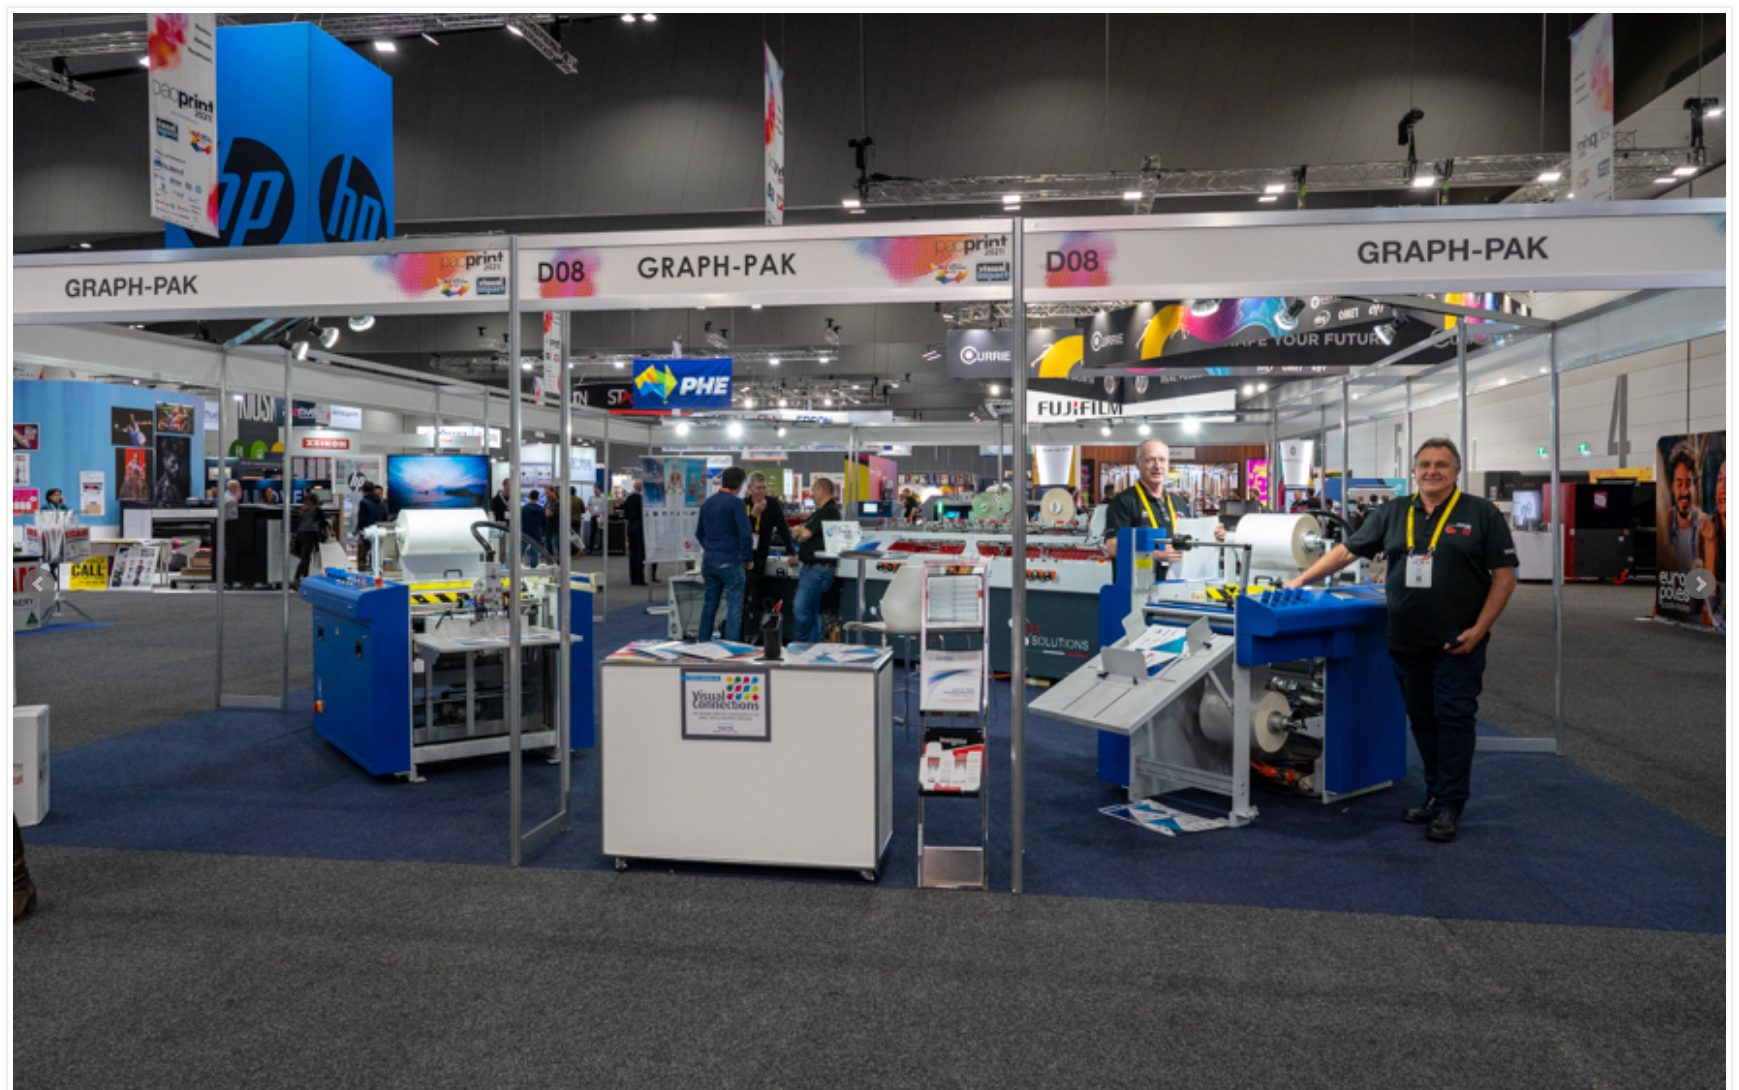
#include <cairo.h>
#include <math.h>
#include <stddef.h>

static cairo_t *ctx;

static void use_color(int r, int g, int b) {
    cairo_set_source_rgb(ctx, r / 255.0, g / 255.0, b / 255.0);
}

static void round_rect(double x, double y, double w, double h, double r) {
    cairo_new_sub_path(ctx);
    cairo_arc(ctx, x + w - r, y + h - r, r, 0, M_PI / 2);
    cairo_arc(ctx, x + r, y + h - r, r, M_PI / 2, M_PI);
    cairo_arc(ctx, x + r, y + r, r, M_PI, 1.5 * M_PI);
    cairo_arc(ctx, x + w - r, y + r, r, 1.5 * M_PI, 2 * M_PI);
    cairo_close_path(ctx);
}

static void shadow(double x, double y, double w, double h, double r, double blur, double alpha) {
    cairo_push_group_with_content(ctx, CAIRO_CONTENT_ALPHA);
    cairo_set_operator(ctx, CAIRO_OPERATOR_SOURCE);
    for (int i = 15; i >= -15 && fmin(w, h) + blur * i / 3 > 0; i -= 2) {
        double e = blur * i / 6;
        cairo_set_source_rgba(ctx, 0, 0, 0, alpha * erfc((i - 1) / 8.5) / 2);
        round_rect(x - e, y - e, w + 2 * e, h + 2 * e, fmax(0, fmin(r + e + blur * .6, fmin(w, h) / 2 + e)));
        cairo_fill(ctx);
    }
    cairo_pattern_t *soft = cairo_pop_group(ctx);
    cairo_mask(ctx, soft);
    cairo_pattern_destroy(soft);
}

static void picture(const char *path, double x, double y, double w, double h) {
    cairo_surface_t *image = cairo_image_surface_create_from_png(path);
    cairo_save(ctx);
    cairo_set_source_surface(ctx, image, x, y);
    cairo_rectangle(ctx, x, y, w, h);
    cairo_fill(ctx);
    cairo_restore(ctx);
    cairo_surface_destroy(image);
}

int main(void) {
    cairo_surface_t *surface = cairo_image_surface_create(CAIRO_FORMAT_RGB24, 1739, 1090);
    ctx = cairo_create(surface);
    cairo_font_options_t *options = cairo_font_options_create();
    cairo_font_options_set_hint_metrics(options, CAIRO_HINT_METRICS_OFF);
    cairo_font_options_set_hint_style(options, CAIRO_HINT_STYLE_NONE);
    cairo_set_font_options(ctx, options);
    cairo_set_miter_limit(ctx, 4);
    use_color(255, 255, 255);
    cairo_paint(ctx);
    cairo_save(ctx);
    cairo_set_fill_rule(ctx, CAIRO_FILL_RULE_EVEN_ODD);
    cairo_new_path(ctx);
    cairo_move_to(ctx, 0, 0);
    cairo_line_to(ctx, 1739, 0);
    cairo_line_to(ctx, 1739, 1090);
    cairo_line_to(ctx, 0, 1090);
    cairo_close_path(ctx);
    cairo_move_to(ctx, 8, 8);
    cairo_line_to(ctx, 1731, 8);
    cairo_line_to(ctx, 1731, 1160);
    cairo_line_to(ctx, 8, 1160);
    cairo_close_path(ctx);
    cairo_clip(ctx);
    use_color(204, 204, 204);
    shadow(8, 8, 1723, 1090, 0, 2.5, 1);
    cairo_restore(ctx);
    picture("img1.png", 13, 13, 1713, 1077);
    picture("img2.png", 23, 568, 32, 31);
    picture("img3.png", 1684, 568, 32, 31);
    cairo_surface_write_to_png(surface, "result.png");
    cairo_font_options_destroy(options);
    cairo_destroy(ctx);
    cairo_surface_destroy(surface);
    return 0;
}
